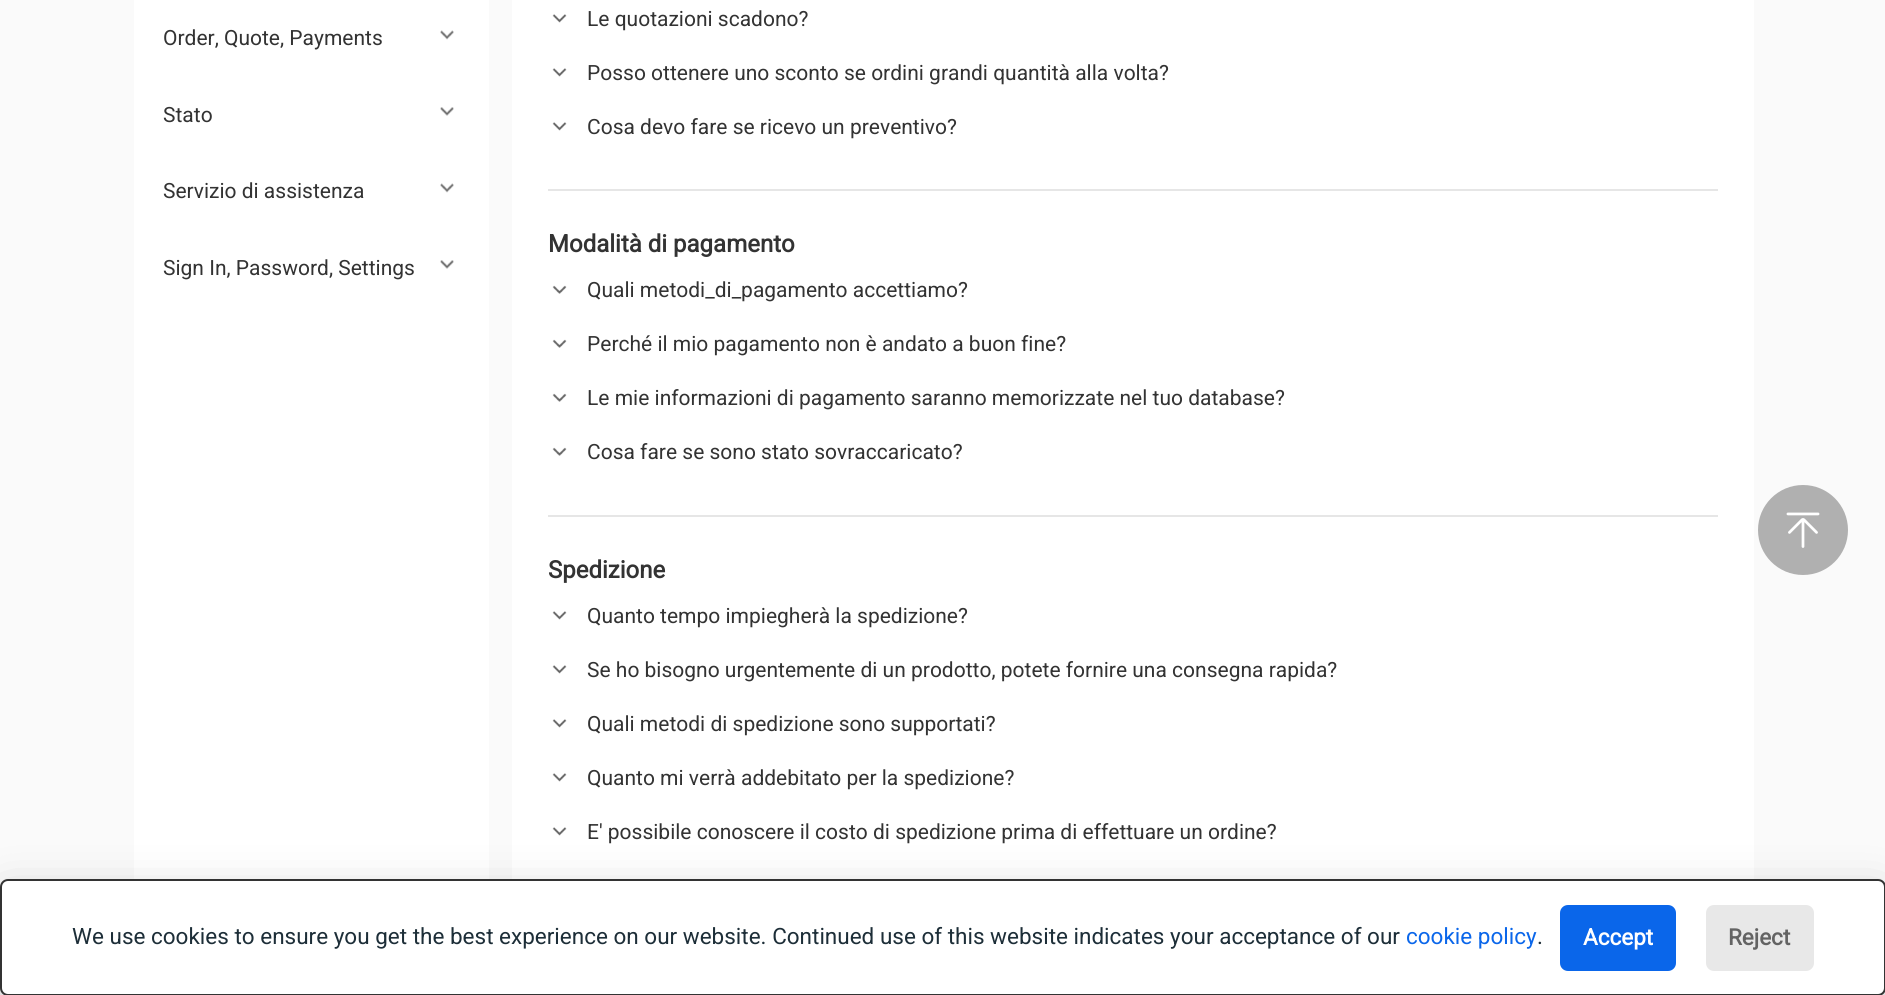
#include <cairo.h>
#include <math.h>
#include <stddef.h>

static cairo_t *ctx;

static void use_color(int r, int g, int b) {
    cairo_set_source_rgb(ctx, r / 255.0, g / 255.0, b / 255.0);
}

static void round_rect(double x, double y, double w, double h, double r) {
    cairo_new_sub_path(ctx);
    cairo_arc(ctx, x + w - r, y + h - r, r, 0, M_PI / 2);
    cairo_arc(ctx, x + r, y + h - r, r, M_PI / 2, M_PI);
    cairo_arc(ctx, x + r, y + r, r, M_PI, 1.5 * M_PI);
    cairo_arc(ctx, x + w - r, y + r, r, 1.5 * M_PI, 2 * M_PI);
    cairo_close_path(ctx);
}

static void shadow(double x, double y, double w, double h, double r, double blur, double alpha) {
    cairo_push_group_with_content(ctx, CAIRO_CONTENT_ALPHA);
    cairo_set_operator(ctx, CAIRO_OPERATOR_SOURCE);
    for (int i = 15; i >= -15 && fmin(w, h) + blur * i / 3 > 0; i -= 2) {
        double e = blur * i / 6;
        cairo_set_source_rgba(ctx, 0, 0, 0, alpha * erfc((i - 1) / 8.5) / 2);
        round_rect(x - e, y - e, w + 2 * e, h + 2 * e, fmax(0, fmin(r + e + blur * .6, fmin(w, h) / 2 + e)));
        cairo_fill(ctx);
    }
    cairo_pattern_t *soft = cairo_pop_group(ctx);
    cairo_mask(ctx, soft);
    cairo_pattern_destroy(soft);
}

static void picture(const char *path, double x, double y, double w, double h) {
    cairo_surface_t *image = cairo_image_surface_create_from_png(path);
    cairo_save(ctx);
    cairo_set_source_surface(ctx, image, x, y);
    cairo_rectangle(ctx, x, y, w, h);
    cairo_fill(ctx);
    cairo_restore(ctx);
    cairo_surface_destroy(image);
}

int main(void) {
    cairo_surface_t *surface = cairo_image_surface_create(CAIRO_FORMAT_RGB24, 1885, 995);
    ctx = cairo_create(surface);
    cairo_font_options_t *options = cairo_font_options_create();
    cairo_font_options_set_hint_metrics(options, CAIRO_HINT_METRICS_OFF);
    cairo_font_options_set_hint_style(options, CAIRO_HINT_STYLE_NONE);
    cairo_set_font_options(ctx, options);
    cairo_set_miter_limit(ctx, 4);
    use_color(250, 250, 250);
    cairo_paint(ctx);
    use_color(255, 255, 255);
    cairo_rectangle(ctx, 134, 0, 355, 879);
    cairo_fill(ctx);
    cairo_select_font_face(ctx, "Roboto", CAIRO_FONT_SLANT_NORMAL, CAIRO_FONT_WEIGHT_NORMAL);
    cairo_set_font_size(ctx, 21);
    use_color(51, 51, 51);
    cairo_move_to(ctx, 163, 45);
    cairo_show_text(ctx, "Order, Quote, Payments");
    picture("img1.png", 440, 30, 14, 10);
    cairo_move_to(ctx, 163, 122);
    cairo_show_text(ctx, "Stato");
    picture("img2.png", 440, 107, 14, 9);
    cairo_move_to(ctx, 163, 198);
    cairo_show_text(ctx, "Servizio di assistenza");
    picture("img1.png", 440, 183, 14, 10);
    cairo_move_to(ctx, 163, 275);
    cairo_show_text(ctx, "Sign In, Password, Settings");
    picture("img2.png", 440, 260, 14, 9);
    use_color(255, 255, 255);
    cairo_rectangle(ctx, 512, 0, 1242, 879);
    cairo_fill(ctx);
    picture("img3.png", 552, 14, 15, 9);
    use_color(51, 51, 51);
    cairo_move_to(ctx, 587, 26);
    cairo_show_text(ctx, "Le quotazioni scadono?");
    picture("img3.png", 552, 68, 15, 9);
    cairo_move_to(ctx, 587, 80);
    cairo_show_text(ctx, "Posso ottenere uno sconto se ordini grandi quantità alla volta?");
    picture("img3.png", 552, 122, 15, 9);
    cairo_move_to(ctx, 587, 134);
    cairo_show_text(ctx, "Cosa devo fare se ricevo un preventivo?");
    use_color(230, 230, 230);
    cairo_rectangle(ctx, 548, 189, 1170, 2);
    cairo_fill(ctx);
    cairo_select_font_face(ctx, "Roboto", CAIRO_FONT_SLANT_NORMAL, CAIRO_FONT_WEIGHT_BOLD);
    cairo_set_font_size(ctx, 24);
    use_color(51, 51, 51);
    cairo_move_to(ctx, 548, 252);
    cairo_show_text(ctx, "Modalità di pagamento");
    picture("img4.png", 552, 285, 15, 9);
    cairo_select_font_face(ctx, "Roboto", CAIRO_FONT_SLANT_NORMAL, CAIRO_FONT_WEIGHT_NORMAL);
    cairo_set_font_size(ctx, 21);
    cairo_move_to(ctx, 587, 297);
    cairo_show_text(ctx, "Quali metodi_di_pagamento accettiamo?");
    picture("img4.png", 552, 339, 15, 9);
    cairo_move_to(ctx, 587, 351);
    cairo_show_text(ctx, "Perché il mio pagamento non è andato a buon fine?");
    picture("img4.png", 552, 393, 15, 9);
    cairo_move_to(ctx, 587, 405);
    cairo_show_text(ctx, "Le mie informazioni di pagamento saranno memorizzate nel tuo database?");
    picture("img4.png", 552, 447, 15, 9);
    cairo_move_to(ctx, 587, 459);
    cairo_show_text(ctx, "Cosa fare se sono stato sovraccaricato?");
    use_color(230, 230, 230);
    cairo_rectangle(ctx, 548, 515, 1170, 2);
    cairo_fill(ctx);
    cairo_select_font_face(ctx, "Roboto", CAIRO_FONT_SLANT_NORMAL, CAIRO_FONT_WEIGHT_BOLD);
    cairo_set_font_size(ctx, 24);
    use_color(51, 51, 51);
    cairo_move_to(ctx, 548, 578);
    cairo_show_text(ctx, "Spedizione");
    picture("img3.png", 552, 611, 15, 9);
    cairo_select_font_face(ctx, "Roboto", CAIRO_FONT_SLANT_NORMAL, CAIRO_FONT_WEIGHT_NORMAL);
    cairo_set_font_size(ctx, 21);
    cairo_move_to(ctx, 587, 623);
    cairo_show_text(ctx, "Quanto tempo impiegherà la spedizione?");
    picture("img3.png", 552, 665, 15, 9);
    cairo_move_to(ctx, 587, 677);
    cairo_show_text(ctx, "Se ho bisogno urgentemente di un prodotto, potete fornire una consegna rapida?");
    picture("img3.png", 552, 719, 15, 9);
    cairo_move_to(ctx, 587, 731);
    cairo_show_text(ctx, "Quali metodi di spedizione sono supportati?");
    picture("img3.png", 552, 773, 15, 9);
    cairo_move_to(ctx, 587, 785);
    cairo_show_text(ctx, "Quanto mi verrà addebitato per la spedizione?");
    picture("img3.png", 552, 827, 15, 9);
    cairo_move_to(ctx, 587, 839);
    cairo_show_text(ctx, "E' possibile conoscere il costo di spedizione prima di effettuare un ordine?");
    use_color(176, 176, 176);
    cairo_new_path(ctx);
    cairo_arc(ctx, 1803, 530, 45, 0, 2 * M_PI);
    cairo_fill(ctx);
    picture("img5.png", 1786, 512, 34, 36);
    use_color(2, 2, 3);
    shadow(0, 894, 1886, 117, 8, 22.5, 0.2);
    use_color(255, 255, 255);
    round_rect(1, 880, 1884, 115, 7);
    cairo_fill_preserve(ctx);
    use_color(51, 51, 51);
    cairo_stroke(ctx);
    cairo_set_font_size(ctx, 22.5);
    use_color(29, 46, 56);
    cairo_move_to(ctx, 72, 944);
    cairo_show_text(ctx, "We use cookies to ensure you get the best experience on our website. Continued use of this website indicates your acceptance of our");
    use_color(10, 102, 234);
    cairo_move_to(ctx, 1406, 944);
    cairo_show_text(ctx, "cookie policy");
    use_color(29, 46, 56);
    cairo_move_to(ctx, 1537, 944);
    cairo_show_text(ctx, ".");
    use_color(10, 102, 234);
    round_rect(1560, 905, 116, 66, 8);
    cairo_fill(ctx);
    cairo_select_font_face(ctx, "Roboto", CAIRO_FONT_SLANT_NORMAL, CAIRO_FONT_WEIGHT_BOLD);
    use_color(255, 255, 255);
    cairo_move_to(ctx, 1583, 945);
    cairo_show_text(ctx, "Accept");
    use_color(232, 232, 232);
    round_rect(1706, 905, 108, 66, 8);
    cairo_fill(ctx);
    use_color(99, 99, 99);
    cairo_move_to(ctx, 1728, 945);
    cairo_show_text(ctx, "Reject");
    cairo_surface_write_to_png(surface, "result.png");
    cairo_font_options_destroy(options);
    cairo_destroy(ctx);
    cairo_surface_destroy(surface);
    return 0;
}
